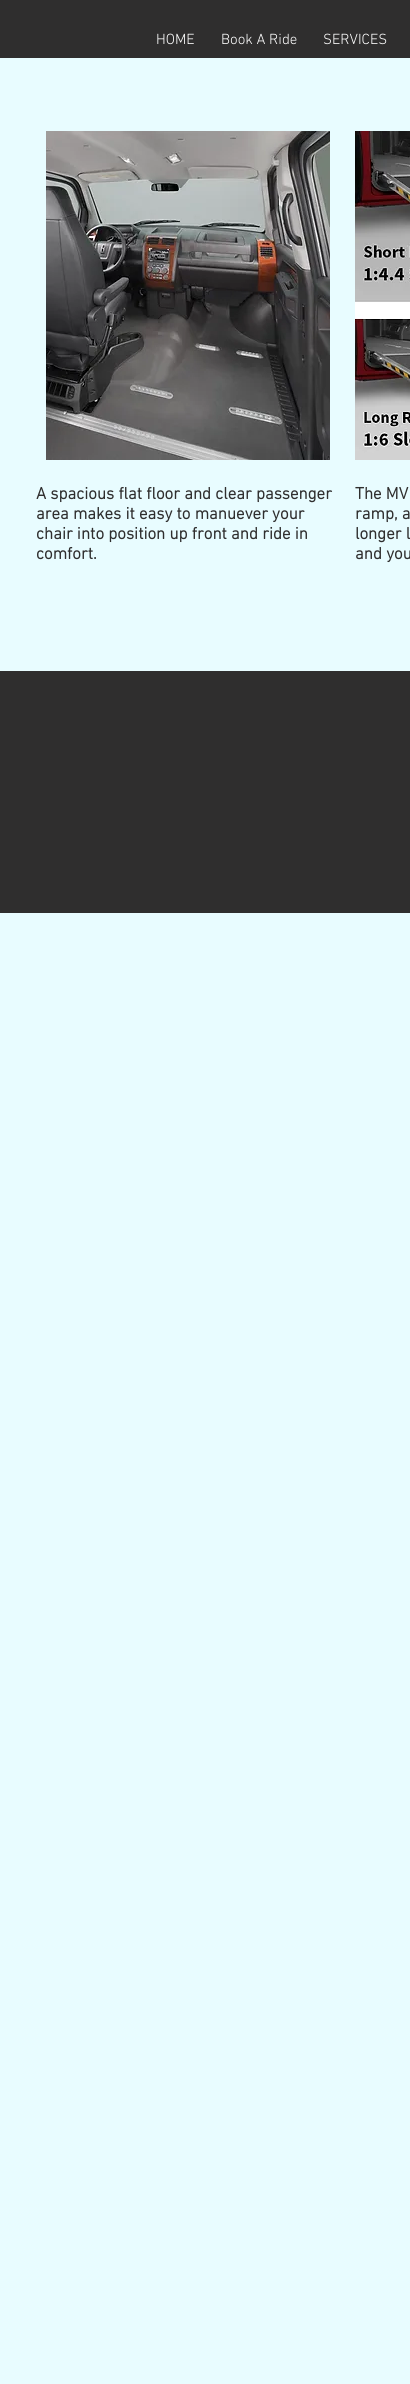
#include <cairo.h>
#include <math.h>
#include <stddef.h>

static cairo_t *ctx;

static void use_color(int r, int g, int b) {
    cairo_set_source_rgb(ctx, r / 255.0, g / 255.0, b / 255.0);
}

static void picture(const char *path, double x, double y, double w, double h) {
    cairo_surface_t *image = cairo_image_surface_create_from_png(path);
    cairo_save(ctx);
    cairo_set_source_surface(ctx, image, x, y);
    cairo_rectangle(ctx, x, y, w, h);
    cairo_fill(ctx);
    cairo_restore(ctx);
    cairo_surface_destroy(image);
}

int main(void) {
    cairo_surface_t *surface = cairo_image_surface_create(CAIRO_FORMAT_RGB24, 410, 2384);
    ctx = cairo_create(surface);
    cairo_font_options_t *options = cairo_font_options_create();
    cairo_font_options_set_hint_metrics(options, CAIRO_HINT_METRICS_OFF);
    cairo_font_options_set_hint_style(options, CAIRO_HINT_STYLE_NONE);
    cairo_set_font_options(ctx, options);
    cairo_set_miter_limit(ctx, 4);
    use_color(232, 252, 255);
    cairo_paint(ctx);
    use_color(47, 46, 46);
    cairo_rectangle(ctx, 0, 0, 410, 58);
    cairo_fill(ctx);
    cairo_select_font_face(ctx, "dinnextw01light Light", CAIRO_FONT_SLANT_NORMAL, CAIRO_FONT_WEIGHT_NORMAL);
    cairo_set_font_size(ctx, 15);
    use_color(255, 255, 255);
    cairo_move_to(ctx, 156, 44);
    cairo_show_text(ctx, "HOME");
    cairo_move_to(ctx, 221, 44);
    cairo_show_text(ctx, "Book A Ride");
    cairo_move_to(ctx, 323, 44);
    cairo_show_text(ctx, "SERVICES");
    picture("img1.png", 46, 131, 284, 329);
    picture("img2.png", 355, 131, 55, 329);
    cairo_select_font_face(ctx, "dinnextw01light", CAIRO_FONT_SLANT_NORMAL, CAIRO_FONT_WEIGHT_BOLD);
    cairo_set_font_size(ctx, 17);
    use_color(47, 46, 46);
    cairo_move_to(ctx, 36, 499);
    cairo_show_text(ctx, "A spacious flat floor and clear passenger");
    cairo_move_to(ctx, 36, 519);
    cairo_show_text(ctx, "area makes it easy to manuever your");
    cairo_move_to(ctx, 36, 539);
    cairo_show_text(ctx, "chair into position up front and ride in");
    cairo_move_to(ctx, 36, 559);
    cairo_show_text(ctx, "comfort.");
    cairo_move_to(ctx, 355, 499);
    cairo_show_text(ctx, "The MV");
    cairo_move_to(ctx, 355, 519);
    cairo_show_text(ctx, "ramp, a");
    cairo_move_to(ctx, 355, 539);
    cairo_show_text(ctx, "longer l");
    cairo_move_to(ctx, 355, 559);
    cairo_show_text(ctx, "and you");
    cairo_rectangle(ctx, 0, 671, 410, 242);
    cairo_fill(ctx);
    cairo_surface_write_to_png(surface, "result.png");
    cairo_font_options_destroy(options);
    cairo_destroy(ctx);
    cairo_surface_destroy(surface);
    return 0;
}
